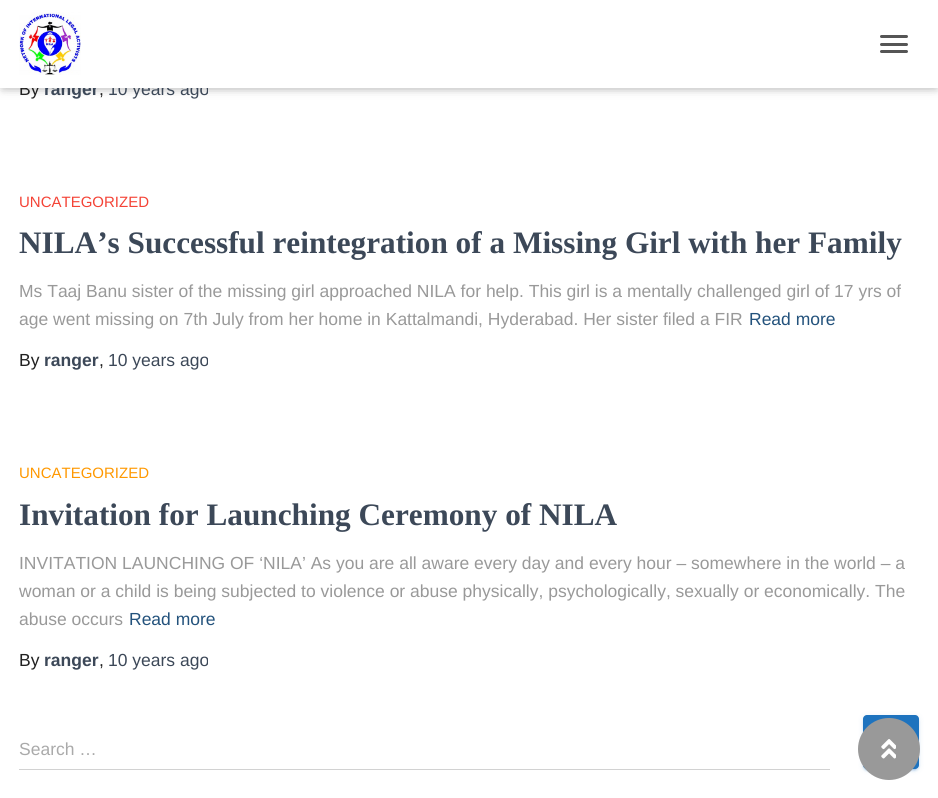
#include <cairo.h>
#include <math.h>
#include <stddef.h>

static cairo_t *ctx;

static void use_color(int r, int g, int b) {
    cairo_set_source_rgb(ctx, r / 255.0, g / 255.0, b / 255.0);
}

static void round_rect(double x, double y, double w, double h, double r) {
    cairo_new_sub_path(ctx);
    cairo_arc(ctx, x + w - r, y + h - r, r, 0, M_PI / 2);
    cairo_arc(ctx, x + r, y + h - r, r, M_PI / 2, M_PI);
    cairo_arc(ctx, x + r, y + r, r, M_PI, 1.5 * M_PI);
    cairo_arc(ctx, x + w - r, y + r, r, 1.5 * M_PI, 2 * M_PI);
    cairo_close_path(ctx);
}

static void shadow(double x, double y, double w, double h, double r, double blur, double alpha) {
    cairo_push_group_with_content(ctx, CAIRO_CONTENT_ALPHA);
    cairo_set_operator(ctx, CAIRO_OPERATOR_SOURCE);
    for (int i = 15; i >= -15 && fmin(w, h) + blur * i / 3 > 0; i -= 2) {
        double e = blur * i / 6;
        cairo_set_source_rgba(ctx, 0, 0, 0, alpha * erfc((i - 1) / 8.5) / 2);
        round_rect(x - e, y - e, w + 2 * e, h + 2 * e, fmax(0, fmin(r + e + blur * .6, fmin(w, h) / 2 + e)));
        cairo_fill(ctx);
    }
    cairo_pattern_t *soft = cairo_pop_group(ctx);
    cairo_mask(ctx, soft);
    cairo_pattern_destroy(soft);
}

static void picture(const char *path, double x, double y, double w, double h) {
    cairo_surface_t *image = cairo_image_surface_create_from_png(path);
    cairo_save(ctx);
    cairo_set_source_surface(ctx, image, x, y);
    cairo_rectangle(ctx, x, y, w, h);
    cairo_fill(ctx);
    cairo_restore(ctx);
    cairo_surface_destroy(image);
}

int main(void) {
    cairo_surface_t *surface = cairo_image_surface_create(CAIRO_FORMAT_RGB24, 938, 798);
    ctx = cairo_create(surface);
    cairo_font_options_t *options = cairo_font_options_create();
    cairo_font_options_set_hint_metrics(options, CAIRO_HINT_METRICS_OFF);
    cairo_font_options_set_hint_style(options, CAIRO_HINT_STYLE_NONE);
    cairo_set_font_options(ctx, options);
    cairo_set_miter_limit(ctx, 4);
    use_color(255, 255, 255);
    cairo_paint(ctx);
    use_color(0, 0, 0);
    shadow(3, 8, 933, 82, 0, 3, 0.1);
    shadow(0, 1, 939, 88, 0, 6, 0.12);
    shadow(8, 9, 923, 72, 0, 6, 0.42);
    cairo_select_font_face(ctx, "Liberation Sans", CAIRO_FONT_SLANT_NORMAL, CAIRO_FONT_WEIGHT_NORMAL);
    cairo_set_font_size(ctx, 17.5);
    use_color(33, 33, 33);
    cairo_move_to(ctx, 19, 95);
    cairo_show_text(ctx, "By");
    cairo_select_font_face(ctx, "Liberation Sans", CAIRO_FONT_SLANT_NORMAL, CAIRO_FONT_WEIGHT_BOLD);
    use_color(60, 72, 88);
    cairo_move_to(ctx, 44, 95);
    cairo_show_text(ctx, "ranger");
    cairo_select_font_face(ctx, "Liberation Sans", CAIRO_FONT_SLANT_NORMAL, CAIRO_FONT_WEIGHT_NORMAL);
    cairo_move_to(ctx, 108, 95);
    cairo_show_text(ctx, "10 years ago");
    use_color(255, 255, 255);
    cairo_rectangle(ctx, 0, 0, 938, 88);
    cairo_fill(ctx);
    picture("img1.png", 19, 12, 62, 63);
    use_color(85, 85, 85);
    round_rect(880, 35, 28, 3, 1.5);
    cairo_fill(ctx);
    round_rect(880, 43, 28, 3, 1.5);
    cairo_fill(ctx);
    round_rect(880, 50, 28, 3, 1.5);
    cairo_fill(ctx);
    use_color(33, 33, 33);
    cairo_move_to(ctx, 99, 95);
    cairo_show_text(ctx, ",");
    cairo_set_font_size(ctx, 15);
    use_color(244, 67, 54);
    cairo_move_to(ctx, 19, 207);
    cairo_show_text(ctx, "UNCATEGORIZED");
    cairo_select_font_face(ctx, "Liberation Serif", CAIRO_FONT_SLANT_NORMAL, CAIRO_FONT_WEIGHT_BOLD);
    cairo_set_font_size(ctx, 31.25);
    use_color(60, 72, 88);
    cairo_move_to(ctx, 19, 253);
    cairo_show_text(ctx, "NILA’s Successful reintegration of a Missing Girl with her Family");
    cairo_select_font_face(ctx, "Liberation Sans", CAIRO_FONT_SLANT_NORMAL, CAIRO_FONT_WEIGHT_NORMAL);
    cairo_set_font_size(ctx, 17.5);
    use_color(153, 153, 153);
    cairo_move_to(ctx, 19, 297);
    cairo_show_text(ctx, "Ms Taaj Banu sister of the missing girl approached NILA for help. This girl is a mentally challenged girl of 17 yrs of");
    cairo_move_to(ctx, 19, 325);
    cairo_show_text(ctx, "age went missing on 7th July from her home in Kattalmandi, Hyderabad. Her sister filed a FIR");
    use_color(35, 82, 124);
    cairo_move_to(ctx, 749, 325);
    cairo_show_text(ctx, "Read more");
    use_color(33, 33, 33);
    cairo_move_to(ctx, 19, 366);
    cairo_show_text(ctx, "By");
    cairo_select_font_face(ctx, "Liberation Sans", CAIRO_FONT_SLANT_NORMAL, CAIRO_FONT_WEIGHT_BOLD);
    use_color(60, 72, 88);
    cairo_move_to(ctx, 44, 366);
    cairo_show_text(ctx, "ranger");
    cairo_select_font_face(ctx, "Liberation Sans", CAIRO_FONT_SLANT_NORMAL, CAIRO_FONT_WEIGHT_NORMAL);
    use_color(33, 33, 33);
    cairo_move_to(ctx, 99, 366);
    cairo_show_text(ctx, ",");
    use_color(60, 72, 88);
    cairo_move_to(ctx, 108, 366);
    cairo_show_text(ctx, "10 years ago");
    cairo_set_font_size(ctx, 15);
    use_color(255, 152, 0);
    cairo_move_to(ctx, 19, 478);
    cairo_show_text(ctx, "UNCATEGORIZED");
    cairo_select_font_face(ctx, "Liberation Serif", CAIRO_FONT_SLANT_NORMAL, CAIRO_FONT_WEIGHT_BOLD);
    cairo_set_font_size(ctx, 31.25);
    use_color(60, 72, 88);
    cairo_move_to(ctx, 19, 525);
    cairo_show_text(ctx, "Invitation for Launching Ceremony of NILA");
    cairo_select_font_face(ctx, "Liberation Sans", CAIRO_FONT_SLANT_NORMAL, CAIRO_FONT_WEIGHT_NORMAL);
    cairo_set_font_size(ctx, 17.5);
    use_color(153, 153, 153);
    cairo_move_to(ctx, 19, 569);
    cairo_show_text(ctx, "INVITATION LAUNCHING OF ‘NILA’ As you are all aware every day and every hour – somewhere in the world – a");
    cairo_move_to(ctx, 19, 597);
    cairo_show_text(ctx, "woman or a child is being subjected to violence or abuse physically, psychologically, sexually or economically. The");
    cairo_move_to(ctx, 19, 625);
    cairo_show_text(ctx, "abuse occurs");
    use_color(35, 82, 124);
    cairo_move_to(ctx, 129, 625);
    cairo_show_text(ctx, "Read more");
    use_color(33, 33, 33);
    cairo_move_to(ctx, 19, 666);
    cairo_show_text(ctx, "By");
    cairo_select_font_face(ctx, "Liberation Sans", CAIRO_FONT_SLANT_NORMAL, CAIRO_FONT_WEIGHT_BOLD);
    use_color(60, 72, 88);
    cairo_move_to(ctx, 44, 666);
    cairo_show_text(ctx, "ranger");
    cairo_select_font_face(ctx, "Liberation Sans", CAIRO_FONT_SLANT_NORMAL, CAIRO_FONT_WEIGHT_NORMAL);
    use_color(33, 33, 33);
    cairo_move_to(ctx, 99, 666);
    cairo_show_text(ctx, ",");
    use_color(60, 72, 88);
    cairo_move_to(ctx, 108, 666);
    cairo_show_text(ctx, "10 years ago");
    use_color(170, 170, 170);
    cairo_move_to(ctx, 19, 755);
    cairo_show_text(ctx, "Search …");
    use_color(210, 210, 210);
    cairo_rectangle(ctx, 19, 769, 811, 1);
    cairo_fill(ctx);
    use_color(30, 115, 190);
    shadow(863, 716, 56, 54, 4, 3, 0.12);
    shadow(865, 721, 51, 49, 1, 0.5, 0.2);
    shadow(863, 718, 56, 53, 4, 1, 0.14);
    use_color(30, 115, 190);
    round_rect(863, 715, 56, 54, 4);
    cairo_fill(ctx);
    use_color(153, 153, 153);
    cairo_arc(ctx, 889, 749, 31, 0, 2 * M_PI);
    cairo_fill(ctx);
    picture("img2.png", 881, 739, 15, 20);
    cairo_surface_write_to_png(surface, "result.png");
    cairo_font_options_destroy(options);
    cairo_destroy(ctx);
    cairo_surface_destroy(surface);
    return 0;
}
